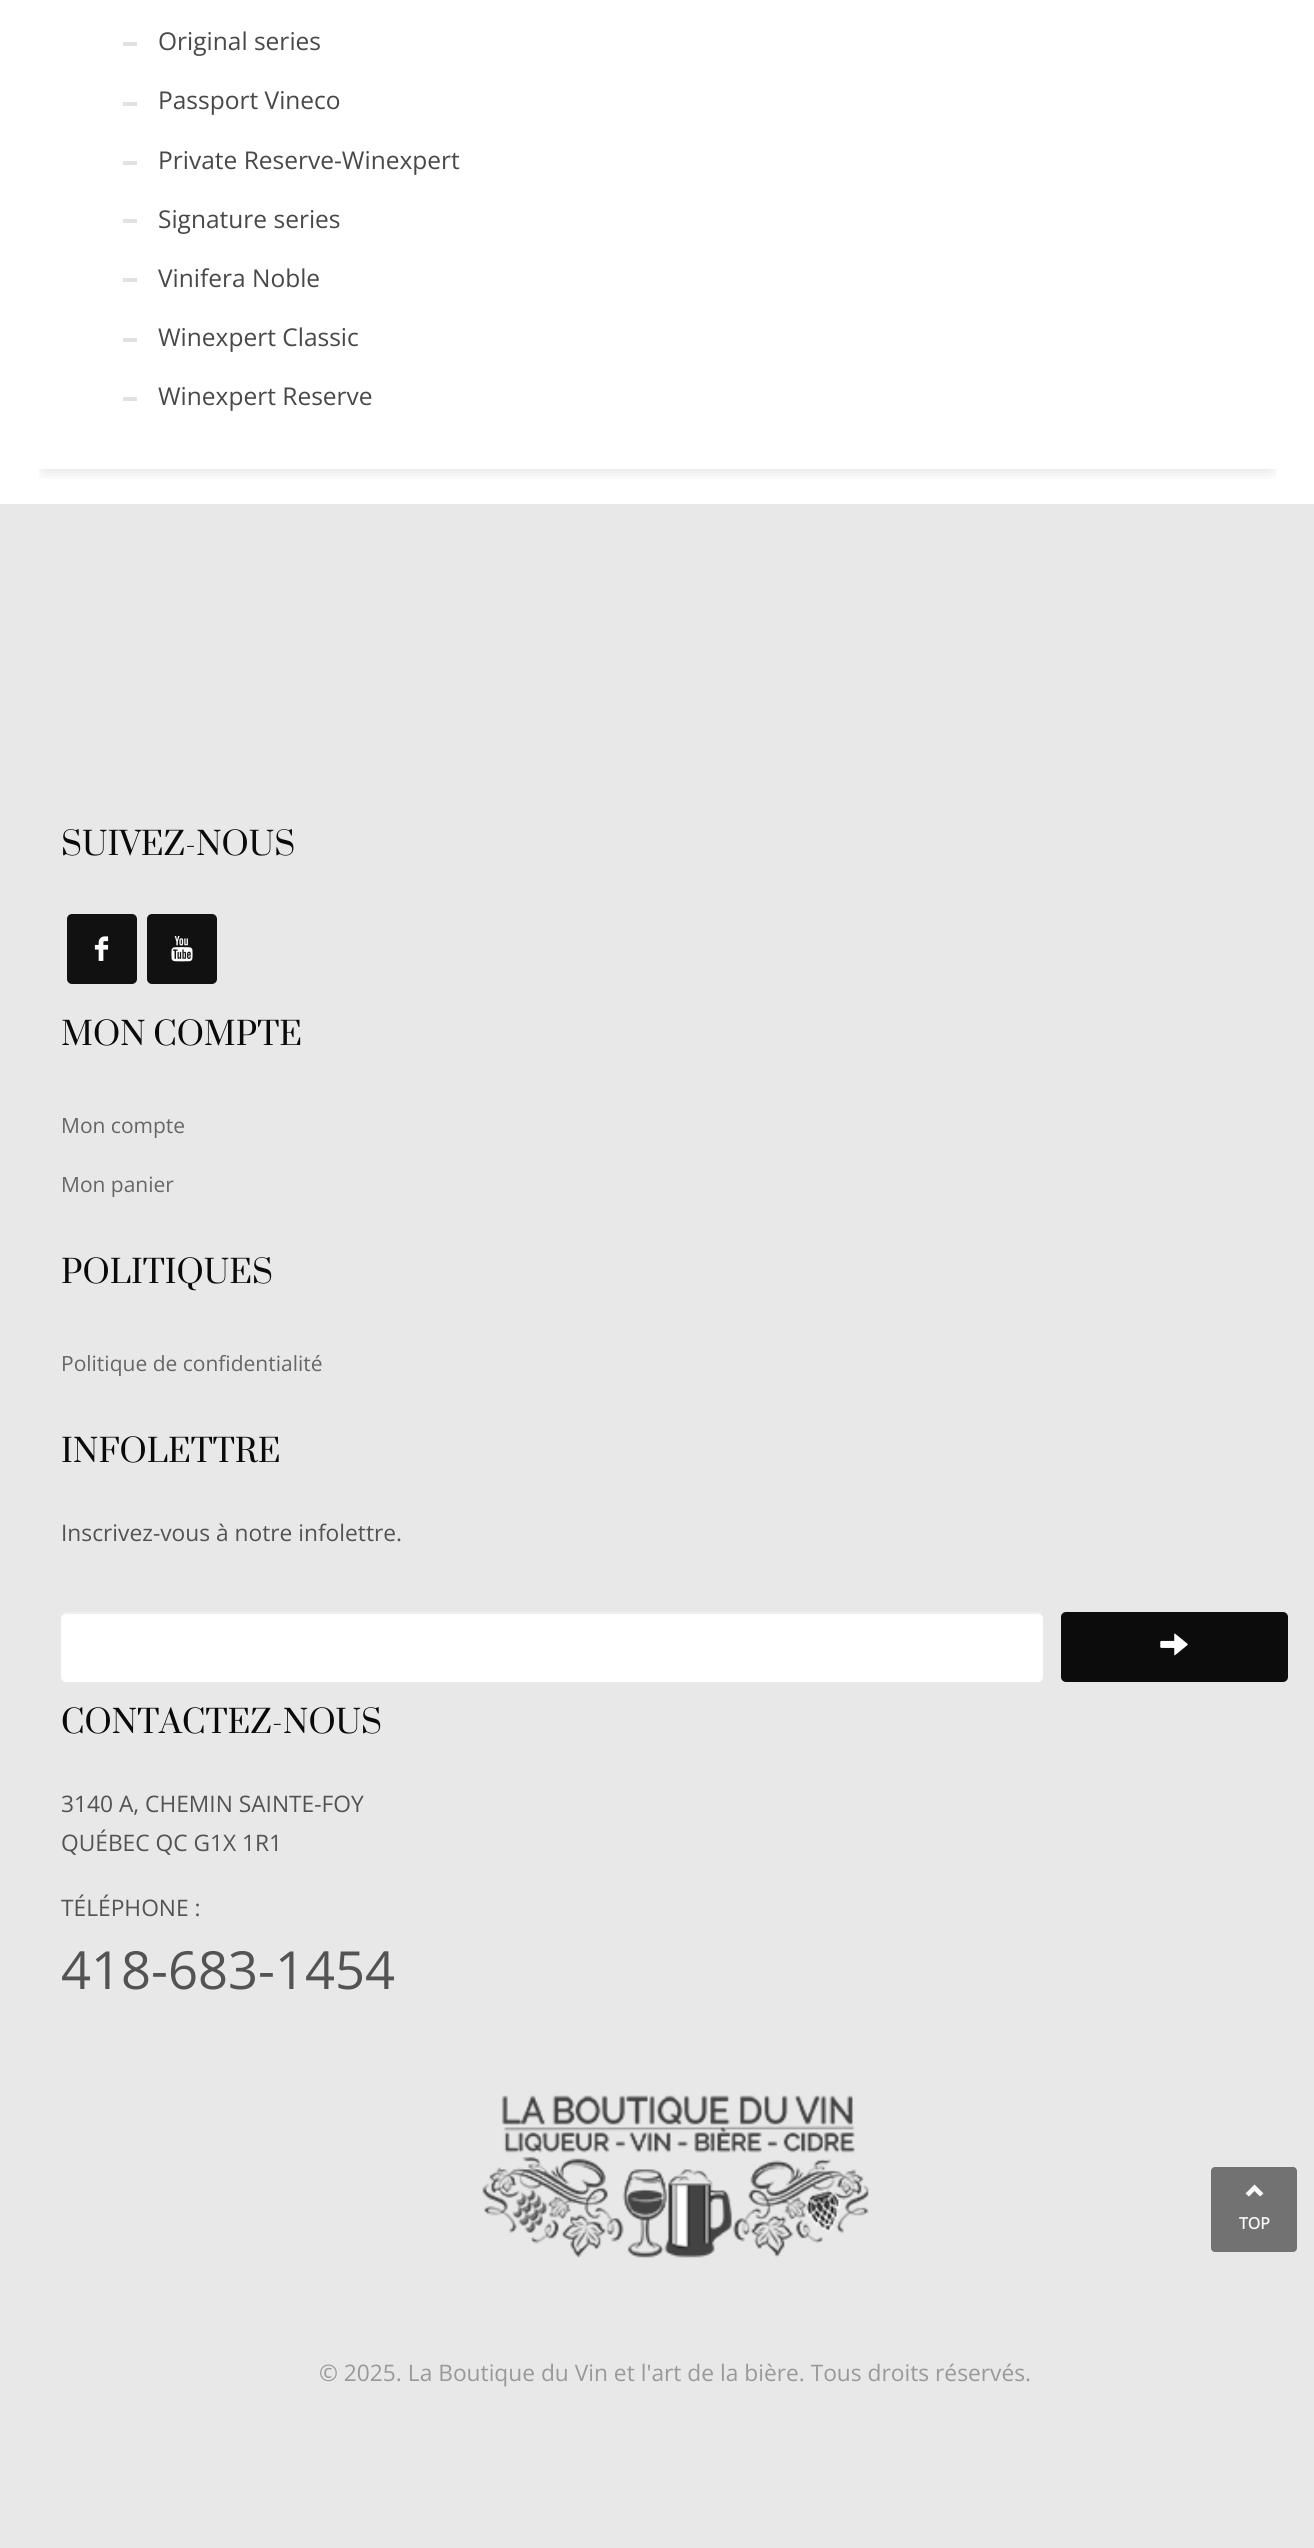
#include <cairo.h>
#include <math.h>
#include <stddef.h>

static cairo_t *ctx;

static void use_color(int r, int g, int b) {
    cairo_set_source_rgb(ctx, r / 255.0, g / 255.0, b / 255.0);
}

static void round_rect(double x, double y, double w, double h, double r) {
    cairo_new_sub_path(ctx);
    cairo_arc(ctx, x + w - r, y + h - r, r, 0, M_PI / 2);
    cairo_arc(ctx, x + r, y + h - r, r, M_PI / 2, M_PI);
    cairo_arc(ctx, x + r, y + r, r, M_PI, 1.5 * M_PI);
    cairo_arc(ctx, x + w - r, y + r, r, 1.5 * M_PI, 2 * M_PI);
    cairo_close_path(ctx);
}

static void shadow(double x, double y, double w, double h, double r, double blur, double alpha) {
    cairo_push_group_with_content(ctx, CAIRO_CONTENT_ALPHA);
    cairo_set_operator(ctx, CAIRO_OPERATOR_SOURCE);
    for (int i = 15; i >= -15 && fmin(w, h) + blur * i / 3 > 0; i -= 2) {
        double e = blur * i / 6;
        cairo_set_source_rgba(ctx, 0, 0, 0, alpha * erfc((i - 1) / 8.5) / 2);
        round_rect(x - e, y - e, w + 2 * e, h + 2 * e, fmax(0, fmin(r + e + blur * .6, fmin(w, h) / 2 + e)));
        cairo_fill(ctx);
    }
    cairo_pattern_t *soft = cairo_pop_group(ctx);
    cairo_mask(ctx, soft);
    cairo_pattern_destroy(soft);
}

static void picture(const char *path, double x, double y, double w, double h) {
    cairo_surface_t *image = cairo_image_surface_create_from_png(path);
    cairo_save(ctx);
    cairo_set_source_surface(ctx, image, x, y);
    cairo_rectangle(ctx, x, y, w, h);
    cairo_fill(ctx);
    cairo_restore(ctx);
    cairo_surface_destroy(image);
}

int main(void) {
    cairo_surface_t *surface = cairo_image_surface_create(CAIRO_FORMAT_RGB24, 1314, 2548);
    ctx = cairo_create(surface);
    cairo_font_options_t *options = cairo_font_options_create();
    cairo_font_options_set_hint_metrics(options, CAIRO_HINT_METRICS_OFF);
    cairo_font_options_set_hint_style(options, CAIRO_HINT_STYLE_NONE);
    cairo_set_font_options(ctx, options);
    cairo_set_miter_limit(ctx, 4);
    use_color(255, 255, 255);
    cairo_paint(ctx);
    cairo_save(ctx);
    cairo_rectangle(ctx, 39, 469, 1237, 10);
    cairo_clip(ctx);
    use_color(0, 0, 0);
    shadow(44, -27, 1227, 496, 0, 9, 0.15);
    cairo_restore(ctx);
    use_color(225, 225, 225);
    cairo_rectangle(ctx, 123, 42, 14, 4);
    cairo_fill(ctx);
    cairo_select_font_face(ctx, "Open Sans", CAIRO_FONT_SLANT_NORMAL, CAIRO_FONT_WEIGHT_NORMAL);
    cairo_set_font_size(ctx, 24.5);
    use_color(72, 72, 72);
    cairo_move_to(ctx, 158, 50);
    cairo_show_text(ctx, "Original series");
    use_color(225, 225, 225);
    cairo_rectangle(ctx, 123, 102, 14, 4);
    cairo_fill(ctx);
    use_color(72, 72, 72);
    cairo_move_to(ctx, 158, 109);
    cairo_show_text(ctx, "Passport Vineco");
    use_color(225, 225, 225);
    cairo_rectangle(ctx, 123, 161, 14, 4);
    cairo_fill(ctx);
    use_color(72, 72, 72);
    cairo_move_to(ctx, 158, 169);
    cairo_show_text(ctx, "Private Reserve-Winexpert");
    use_color(225, 225, 225);
    cairo_rectangle(ctx, 123, 219, 14, 4);
    cairo_fill(ctx);
    use_color(72, 72, 72);
    cairo_move_to(ctx, 158, 228);
    cairo_show_text(ctx, "Signature series");
    use_color(225, 225, 225);
    cairo_rectangle(ctx, 123, 278, 14, 4);
    cairo_fill(ctx);
    use_color(72, 72, 72);
    cairo_move_to(ctx, 158, 287);
    cairo_show_text(ctx, "Vinifera Noble");
    use_color(225, 225, 225);
    cairo_rectangle(ctx, 123, 338, 14, 4);
    cairo_fill(ctx);
    use_color(72, 72, 72);
    cairo_move_to(ctx, 158, 346);
    cairo_show_text(ctx, "Winexpert Classic");
    use_color(225, 225, 225);
    cairo_rectangle(ctx, 123, 397, 14, 4);
    cairo_fill(ctx);
    use_color(72, 72, 72);
    cairo_move_to(ctx, 158, 405);
    cairo_show_text(ctx, "Winexpert Reserve");
    use_color(232, 232, 232);
    cairo_rectangle(ctx, 0, 504, 1314, 2044);
    cairo_fill(ctx);
    cairo_select_font_face(ctx, "Prata", CAIRO_FONT_SLANT_NORMAL, CAIRO_FONT_WEIGHT_NORMAL);
    cairo_set_font_size(ctx, 31.5);
    use_color(10, 10, 10);
    cairo_move_to(ctx, 61, 855);
    cairo_show_text(ctx, "SUIVEZ-NOUS");
    use_color(17, 17, 17);
    round_rect(67, 914, 70, 70, 5);
    cairo_fill(ctx);
    picture("img1.png", 94, 936, 15, 25);
    round_rect(147, 914, 70, 70, 5);
    cairo_fill(ctx);
    picture("img2.png", 171, 936, 22, 26);
    use_color(10, 10, 10);
    cairo_move_to(ctx, 61, 1045);
    cairo_show_text(ctx, "MON COMPTE");
    cairo_select_font_face(ctx, "Open Sans", CAIRO_FONT_SLANT_NORMAL, CAIRO_FONT_WEIGHT_NORMAL);
    cairo_set_font_size(ctx, 21);
    use_color(102, 102, 102);
    cairo_move_to(ctx, 61, 1133);
    cairo_show_text(ctx, "Mon compte");
    cairo_move_to(ctx, 61, 1192);
    cairo_show_text(ctx, "Mon panier");
    cairo_select_font_face(ctx, "Prata", CAIRO_FONT_SLANT_NORMAL, CAIRO_FONT_WEIGHT_NORMAL);
    cairo_set_font_size(ctx, 31.5);
    use_color(10, 10, 10);
    cairo_move_to(ctx, 61, 1283);
    cairo_show_text(ctx, "POLITIQUES");
    cairo_select_font_face(ctx, "Open Sans", CAIRO_FONT_SLANT_NORMAL, CAIRO_FONT_WEIGHT_NORMAL);
    cairo_set_font_size(ctx, 21);
    use_color(102, 102, 102);
    cairo_move_to(ctx, 61, 1371);
    cairo_show_text(ctx, "Politique de confidentialité");
    cairo_select_font_face(ctx, "Prata", CAIRO_FONT_SLANT_NORMAL, CAIRO_FONT_WEIGHT_NORMAL);
    cairo_set_font_size(ctx, 31.5);
    use_color(10, 10, 10);
    cairo_move_to(ctx, 61, 1462);
    cairo_show_text(ctx, "INFOLETTRE");
    cairo_select_font_face(ctx, "Open Sans", CAIRO_FONT_SLANT_NORMAL, CAIRO_FONT_WEIGHT_NORMAL);
    cairo_set_font_size(ctx, 22.75);
    use_color(83, 83, 83);
    cairo_move_to(ctx, 61, 1541);
    cairo_show_text(ctx, "Inscrivez-vous à notre infolettre.");
    use_color(255, 255, 255);
    round_rect(61, 1612, 982, 70, 5);
    cairo_fill(ctx);
    cairo_set_source_rgba(ctx, 0, 0, 0, 0.07);
    cairo_new_path(ctx);
    cairo_move_to(ctx, 66, 1614);
    cairo_line_to(ctx, 1038, 1614);
    cairo_curve_to(ctx, 1041, 1614, 1043, 1616, 1043, 1619);
    cairo_line_to(ctx, 1043, 1617);
    cairo_curve_to(ctx, 1043, 1614, 1041, 1612, 1038, 1612);
    cairo_line_to(ctx, 66, 1612);
    cairo_curve_to(ctx, 63, 1612, 61, 1614, 61, 1617);
    cairo_line_to(ctx, 61, 1619);
    cairo_curve_to(ctx, 61, 1616, 64, 1614, 66, 1614);
    cairo_close_path(ctx);
    cairo_fill(ctx);
    use_color(12, 12, 12);
    round_rect(1061, 1612, 227, 70, 5);
    cairo_fill(ctx);
    picture("img3.png", 1160, 1633, 28, 23);
    cairo_select_font_face(ctx, "Prata", CAIRO_FONT_SLANT_NORMAL, CAIRO_FONT_WEIGHT_NORMAL);
    cairo_set_font_size(ctx, 31.5);
    use_color(10, 10, 10);
    cairo_move_to(ctx, 61, 1733);
    cairo_show_text(ctx, "CONTACTEZ-NOUS");
    cairo_select_font_face(ctx, "Open Sans", CAIRO_FONT_SLANT_NORMAL, CAIRO_FONT_WEIGHT_NORMAL);
    cairo_set_font_size(ctx, 22.75);
    use_color(83, 83, 83);
    cairo_move_to(ctx, 61, 1812);
    cairo_show_text(ctx, "3140 A, CHEMIN SAINTE-FOY");
    cairo_move_to(ctx, 61, 1851);
    cairo_show_text(ctx, "QUÉBEC QC G1X 1R1");
    cairo_move_to(ctx, 61, 1916);
    cairo_show_text(ctx, "TÉLÉPHONE :");
    cairo_set_font_size(ctx, 52.5);
    cairo_move_to(ctx, 61, 1989);
    cairo_show_text(ctx, "418-683-1454");
    picture("img4.png", 482, 2095, 387, 163);
    cairo_set_font_size(ctx, 22.75);
    use_color(153, 153, 153);
    cairo_move_to(ctx, 319, 2381);
    cairo_show_text(ctx, "© 2025. La Boutique du Vin et l'art de la bière. Tous droits réservés.");
    use_color(114, 114, 114);
    round_rect(1211, 2167, 86, 85, 4);
    cairo_fill(ctx);
    use_color(248, 248, 248);
    cairo_new_path(ctx);
    cairo_move_to(ctx, 1254.5, 2184.5);
    cairo_line_to(ctx, 1263.5, 2193.5);
    cairo_line_to(ctx, 1260, 2196.5);
    cairo_line_to(ctx, 1254.5, 2191);
    cairo_line_to(ctx, 1249, 2196.5);
    cairo_line_to(ctx, 1245.5, 2193.5);
    cairo_close_path(ctx);
    cairo_fill(ctx);
    cairo_select_font_face(ctx, "Open Sans", CAIRO_FONT_SLANT_NORMAL, CAIRO_FONT_WEIGHT_BOLD);
    cairo_set_font_size(ctx, 16);
    cairo_move_to(ctx, 1239, 2229);
    cairo_show_text(ctx, "TOP");
    cairo_surface_write_to_png(surface, "result.png");
    cairo_font_options_destroy(options);
    cairo_destroy(ctx);
    cairo_surface_destroy(surface);
    return 0;
}
